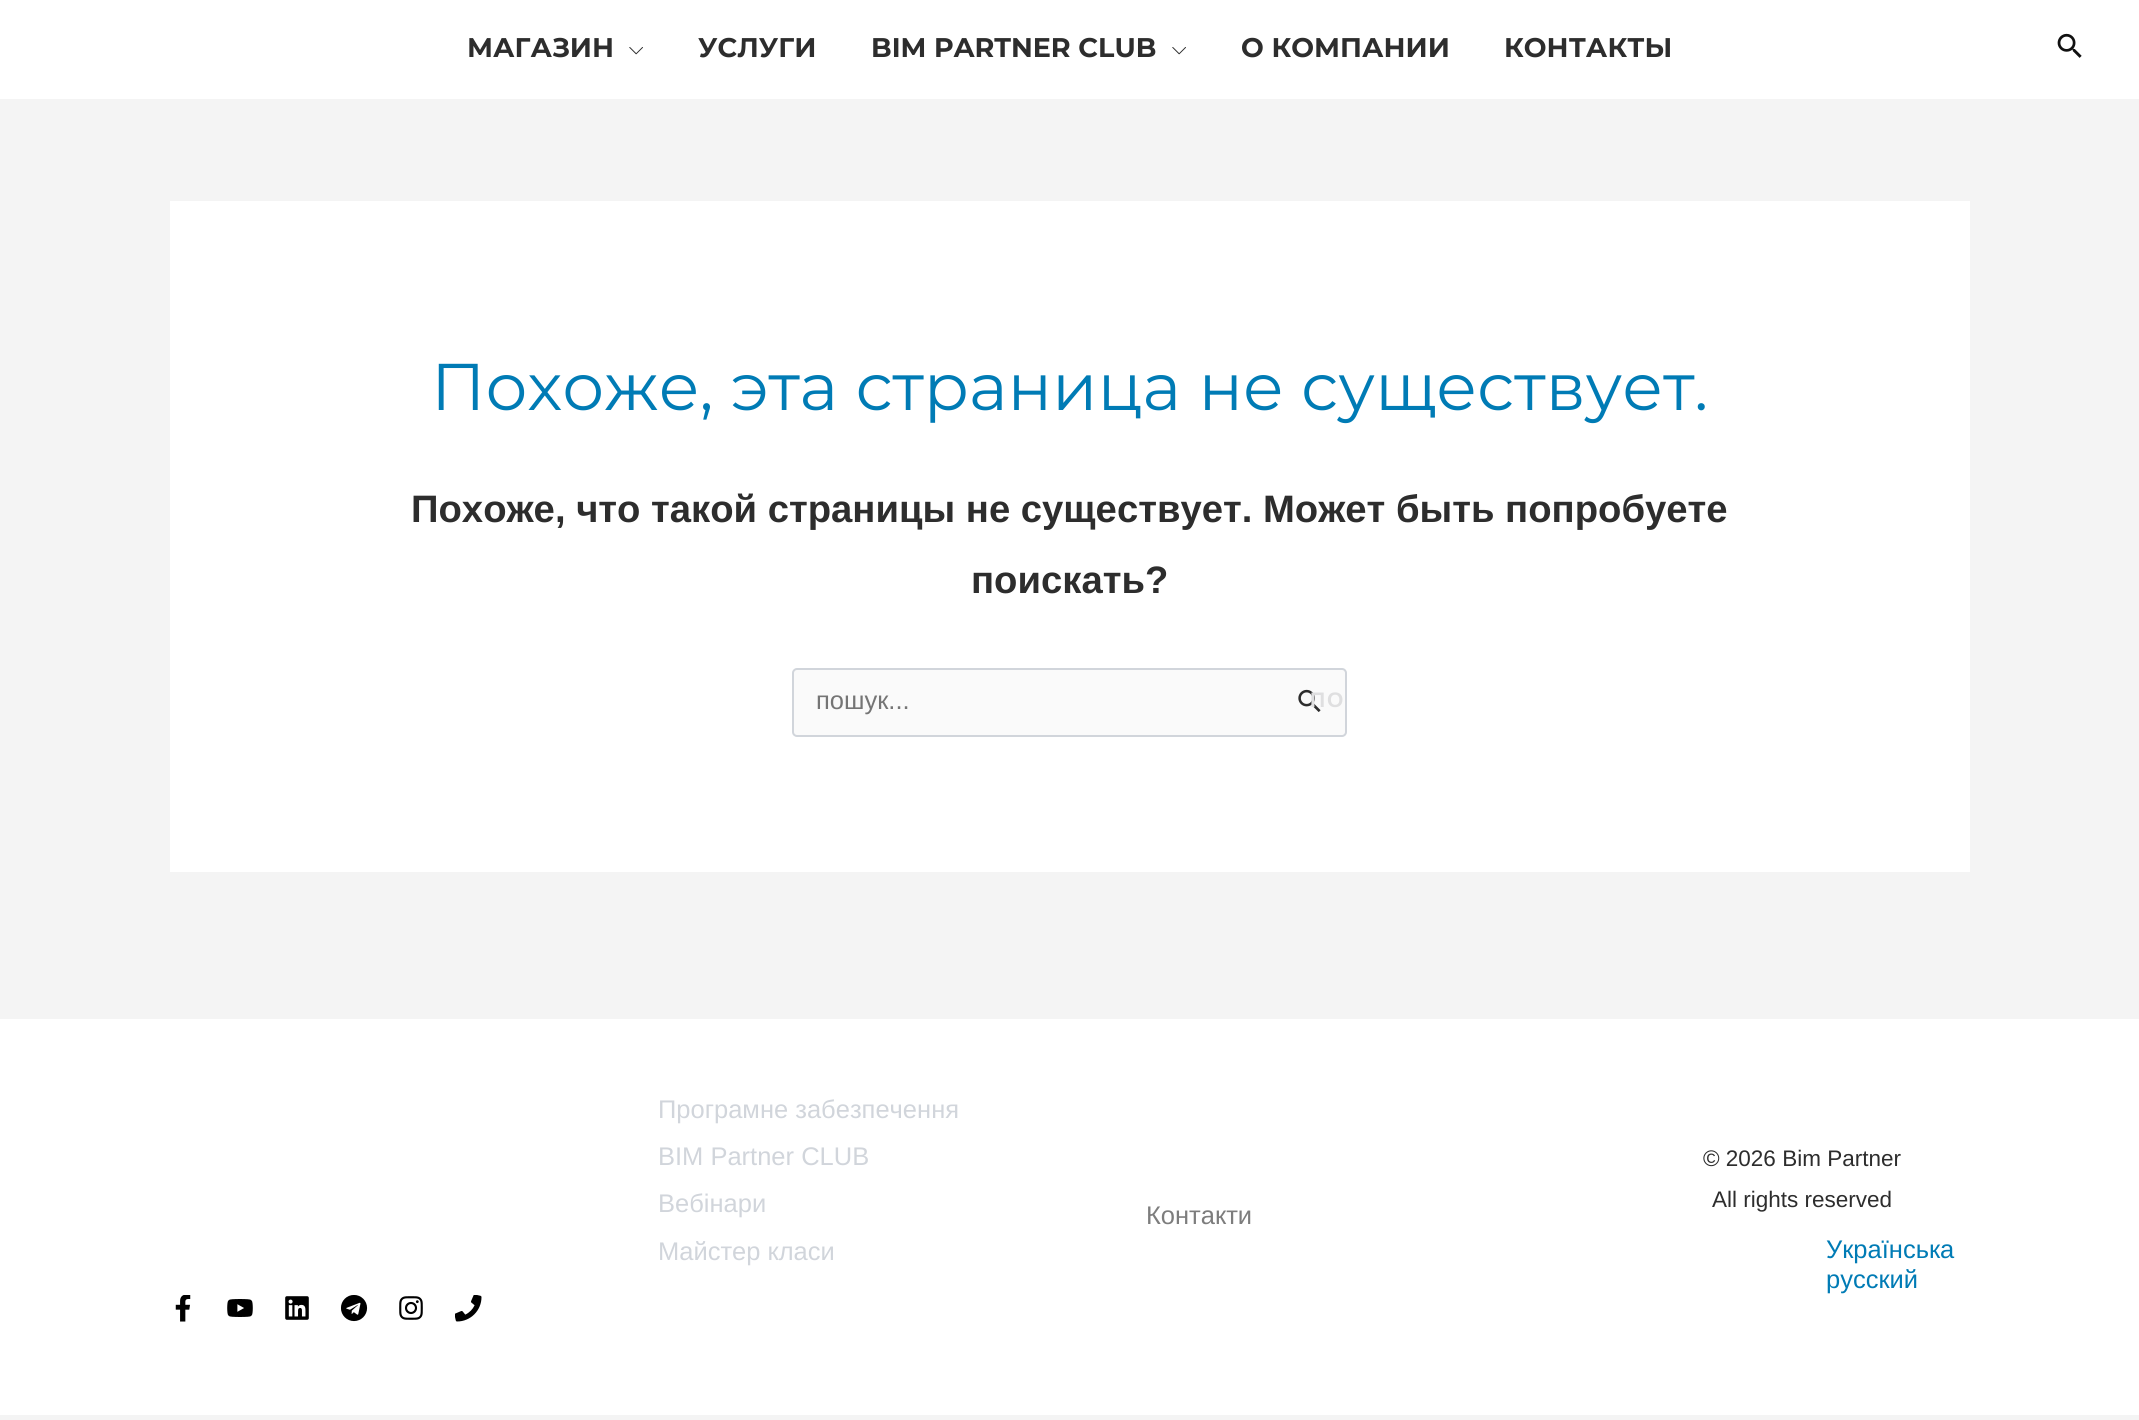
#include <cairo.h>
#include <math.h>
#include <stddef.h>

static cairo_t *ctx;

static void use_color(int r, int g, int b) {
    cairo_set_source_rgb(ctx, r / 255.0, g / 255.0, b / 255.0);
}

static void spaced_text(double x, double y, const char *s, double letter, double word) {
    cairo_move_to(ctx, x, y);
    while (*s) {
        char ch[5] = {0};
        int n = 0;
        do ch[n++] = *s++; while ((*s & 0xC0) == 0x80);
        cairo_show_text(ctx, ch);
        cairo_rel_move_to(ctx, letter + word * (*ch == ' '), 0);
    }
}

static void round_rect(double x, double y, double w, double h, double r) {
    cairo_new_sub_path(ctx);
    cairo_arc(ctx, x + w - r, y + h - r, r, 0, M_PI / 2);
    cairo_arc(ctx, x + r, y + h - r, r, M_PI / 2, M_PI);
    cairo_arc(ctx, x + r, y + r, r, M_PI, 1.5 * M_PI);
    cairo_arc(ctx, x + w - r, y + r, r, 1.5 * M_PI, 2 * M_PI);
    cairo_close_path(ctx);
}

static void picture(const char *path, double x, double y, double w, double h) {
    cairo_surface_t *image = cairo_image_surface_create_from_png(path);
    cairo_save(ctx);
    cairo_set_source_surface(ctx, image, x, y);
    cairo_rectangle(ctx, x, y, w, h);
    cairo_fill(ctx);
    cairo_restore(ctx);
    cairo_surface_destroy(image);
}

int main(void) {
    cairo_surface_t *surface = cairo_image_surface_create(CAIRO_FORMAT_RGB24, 2139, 1420);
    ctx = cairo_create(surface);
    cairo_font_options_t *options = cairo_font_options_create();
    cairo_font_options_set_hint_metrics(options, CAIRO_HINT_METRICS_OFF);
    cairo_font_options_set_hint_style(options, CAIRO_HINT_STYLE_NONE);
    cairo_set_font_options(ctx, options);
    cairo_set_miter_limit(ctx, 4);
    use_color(244, 244, 244);
    cairo_paint(ctx);
    use_color(255, 255, 255);
    cairo_rectangle(ctx, 0, 0, 2139, 99);
    cairo_fill(ctx);
    cairo_select_font_face(ctx, "Montserrat", CAIRO_FONT_SLANT_NORMAL, CAIRO_FONT_WEIGHT_BOLD);
    cairo_set_font_size(ctx, 27);
    use_color(45, 45, 45);
    cairo_move_to(ctx, 467, 57);
    cairo_show_text(ctx, "МАГАЗИН");
    picture("img1.png", 629, 47, 14, 8);
    cairo_move_to(ctx, 698, 57);
    cairo_show_text(ctx, "УСЛУГИ");
    cairo_move_to(ctx, 871, 57);
    cairo_show_text(ctx, "BIM PARTNER CLUB");
    picture("img1.png", 1172, 47, 14, 8);
    cairo_move_to(ctx, 1241, 57);
    cairo_show_text(ctx, "О КОМПАНИИ");
    cairo_move_to(ctx, 1504, 57);
    cairo_show_text(ctx, "КОНТАКТЫ");
    picture("img2.png", 2057, 33, 25, 25);
    use_color(255, 255, 255);
    cairo_rectangle(ctx, 170, 201, 1800, 671);
    cairo_fill(ctx);
    cairo_select_font_face(ctx, "Montserrat", CAIRO_FONT_SLANT_NORMAL, CAIRO_FONT_WEIGHT_NORMAL);
    cairo_set_font_size(ctx, 66);
    use_color(0, 123, 181);
    cairo_move_to(ctx, 431, 410);
    cairo_show_text(ctx, "Похоже, эта страница не существует.");
    cairo_select_font_face(ctx, "Liberation Sans", CAIRO_FONT_SLANT_NORMAL, CAIRO_FONT_WEIGHT_BOLD);
    cairo_set_font_size(ctx, 38.25);
    use_color(45, 45, 45);
    cairo_move_to(ctx, 411, 522);
    cairo_show_text(ctx, "Похоже, что такой страницы не существует. Может быть попробуете");
    cairo_move_to(ctx, 971, 593);
    cairo_show_text(ctx, "поискать?");
    use_color(250, 250, 250);
    round_rect(793, 669, 553, 67, 4);
    cairo_fill_preserve(ctx);
    use_color(209, 213, 219);
    cairo_stroke(ctx);
    cairo_select_font_face(ctx, "Liberation Sans", CAIRO_FONT_SLANT_NORMAL, CAIRO_FONT_WEIGHT_NORMAL);
    cairo_set_font_size(ctx, 25.5);
    use_color(117, 117, 117);
    cairo_move_to(ctx, 816, 709);
    cairo_show_text(ctx, "пошук...");
    picture("img3.png", 1298, 689, 23, 23);
    cairo_select_font_face(ctx, "Liberation Sans", CAIRO_FONT_SLANT_NORMAL, CAIRO_FONT_WEIGHT_BOLD);
    cairo_set_font_size(ctx, 21);
    use_color(223, 223, 224);
    spaced_text(1310, 707, "ПО", 2, 0);
    use_color(255, 255, 255);
    cairo_rectangle(ctx, 0, 1019, 2139, 396);
    cairo_fill(ctx);
    cairo_select_font_face(ctx, "Liberation Sans", CAIRO_FONT_SLANT_NORMAL, CAIRO_FONT_WEIGHT_NORMAL);
    cairo_set_font_size(ctx, 25.5);
    use_color(209, 213, 219);
    cairo_move_to(ctx, 658, 1118);
    cairo_show_text(ctx, "Програмне забезпечення");
    cairo_move_to(ctx, 658, 1165);
    cairo_show_text(ctx, "BIM Partner CLUB");
    cairo_move_to(ctx, 658, 1212);
    cairo_show_text(ctx, "Вебінари");
    cairo_move_to(ctx, 658, 1260);
    cairo_show_text(ctx, "Майстер класи");
    use_color(125, 125, 125);
    cairo_move_to(ctx, 1146, 1224);
    cairo_show_text(ctx, "Контакти");
    cairo_set_font_size(ctx, 22.5);
    use_color(45, 45, 45);
    cairo_move_to(ctx, 1703, 1166);
    cairo_show_text(ctx, "© 2026 Bim Partner");
    cairo_move_to(ctx, 1712, 1207);
    cairo_show_text(ctx, "All rights reserved");
    cairo_set_font_size(ctx, 25.5);
    use_color(0, 123, 181);
    cairo_move_to(ctx, 1826, 1258);
    cairo_show_text(ctx, "Українська");
    cairo_move_to(ctx, 1826, 1288);
    cairo_show_text(ctx, "русский");
    picture("img4.png", 175, 1295, 16, 27);
    picture("img5.png", 227, 1299, 26, 18);
    picture("img6.png", 285, 1296, 24, 24);
    picture("img7.png", 341, 1295, 27, 27);
    picture("img8.png", 399, 1296, 24, 24);
    picture("img9.png", 455, 1295, 27, 27);
    cairo_surface_write_to_png(surface, "result.png");
    cairo_font_options_destroy(options);
    cairo_destroy(ctx);
    cairo_surface_destroy(surface);
    return 0;
}
